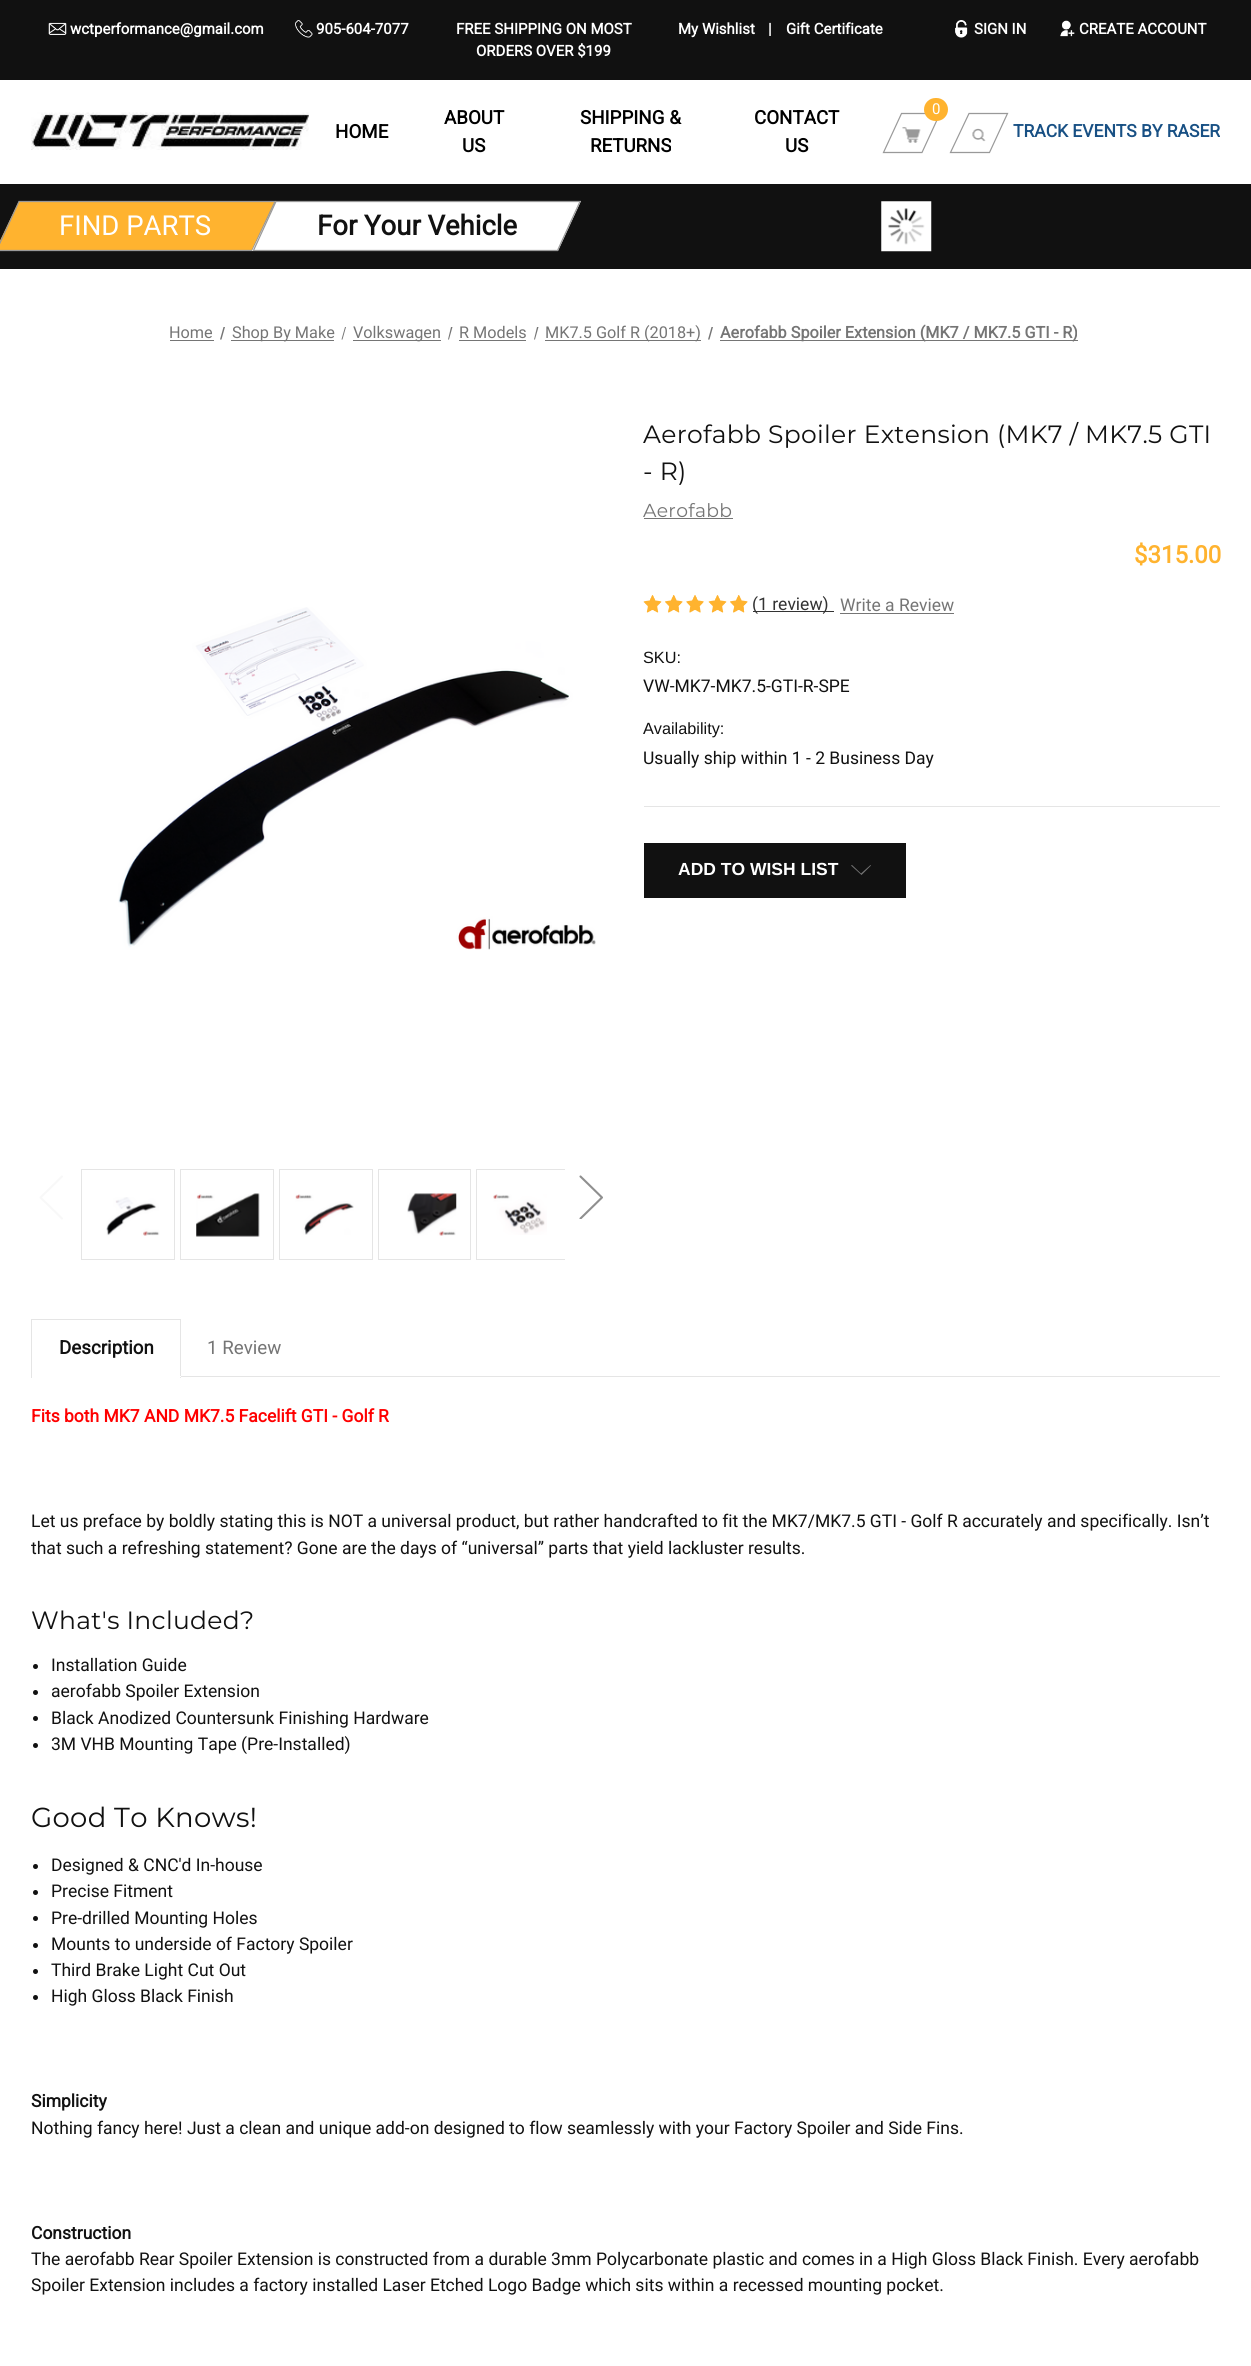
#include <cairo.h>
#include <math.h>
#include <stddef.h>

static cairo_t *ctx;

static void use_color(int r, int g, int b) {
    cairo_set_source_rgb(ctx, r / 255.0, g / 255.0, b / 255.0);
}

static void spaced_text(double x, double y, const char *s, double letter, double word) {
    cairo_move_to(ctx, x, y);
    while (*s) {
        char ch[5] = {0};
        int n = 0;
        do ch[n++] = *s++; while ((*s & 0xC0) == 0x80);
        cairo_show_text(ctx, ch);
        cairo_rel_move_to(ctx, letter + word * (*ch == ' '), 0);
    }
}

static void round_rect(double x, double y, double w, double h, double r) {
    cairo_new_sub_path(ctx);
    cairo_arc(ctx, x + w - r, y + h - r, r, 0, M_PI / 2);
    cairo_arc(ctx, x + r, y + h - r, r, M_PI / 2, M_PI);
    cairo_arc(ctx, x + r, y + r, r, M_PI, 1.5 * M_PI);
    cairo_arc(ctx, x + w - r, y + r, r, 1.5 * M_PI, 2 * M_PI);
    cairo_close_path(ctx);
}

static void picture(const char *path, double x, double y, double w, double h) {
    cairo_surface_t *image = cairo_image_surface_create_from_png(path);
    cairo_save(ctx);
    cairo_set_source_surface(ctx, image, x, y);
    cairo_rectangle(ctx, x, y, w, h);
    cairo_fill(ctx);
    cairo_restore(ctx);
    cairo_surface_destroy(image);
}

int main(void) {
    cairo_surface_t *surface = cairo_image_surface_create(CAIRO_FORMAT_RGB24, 1251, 2366);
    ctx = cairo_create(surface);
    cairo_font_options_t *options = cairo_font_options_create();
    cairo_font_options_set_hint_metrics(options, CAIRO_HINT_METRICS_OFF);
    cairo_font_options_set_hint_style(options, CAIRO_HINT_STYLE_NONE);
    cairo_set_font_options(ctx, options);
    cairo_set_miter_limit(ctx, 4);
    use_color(255, 255, 255);
    cairo_paint(ctx);
    use_color(17, 17, 17);
    cairo_rectangle(ctx, 0, 0, 1251, 80);
    cairo_fill(ctx);
    picture("img1.png", 48, 22, 19, 13);
    cairo_select_font_face(ctx, "Roboto", CAIRO_FONT_SLANT_NORMAL, CAIRO_FONT_WEIGHT_BOLD);
    cairo_set_font_size(ctx, 15);
    use_color(255, 255, 255);
    cairo_move_to(ctx, 70, 34);
    cairo_show_text(ctx, "wctperformance@gmail.com");
    picture("img2.png", 295, 20, 18, 18);
    cairo_move_to(ctx, 316, 34);
    cairo_show_text(ctx, "905-604-7077");
    cairo_move_to(ctx, 456, 34);
    cairo_show_text(ctx, "FREE SHIPPING ON MOST");
    cairo_move_to(ctx, 476, 56);
    cairo_show_text(ctx, "ORDERS OVER $199");
    cairo_move_to(ctx, 678, 34);
    cairo_show_text(ctx, "My Wishlist");
    cairo_move_to(ctx, 768, 34);
    cairo_show_text(ctx, "|");
    cairo_move_to(ctx, 786, 34);
    cairo_show_text(ctx, "Gift Certificate");
    picture("img3.png", 955, 20, 13, 18);
    cairo_move_to(ctx, 974, 34);
    cairo_show_text(ctx, "SIGN IN");
    picture("img4.png", 1060, 20, 15, 17);
    cairo_move_to(ctx, 1079, 34);
    cairo_show_text(ctx, "CREATE ACCOUNT");
    picture("img5.png", 31, 112, 278, 38);
    cairo_set_font_size(ctx, 18.75);
    use_color(0, 0, 0);
    cairo_move_to(ctx, 335, 138);
    cairo_show_text(ctx, "HOME");
    cairo_move_to(ctx, 444, 124);
    cairo_show_text(ctx, "ABOUT");
    cairo_move_to(ctx, 462, 152);
    cairo_show_text(ctx, "US");
    cairo_move_to(ctx, 580, 124);
    cairo_show_text(ctx, "SHIPPING &");
    cairo_move_to(ctx, 590, 152);
    cairo_show_text(ctx, "RETURNS");
    cairo_move_to(ctx, 754, 124);
    cairo_show_text(ctx, "CONTACT");
    cairo_move_to(ctx, 785, 152);
    cairo_show_text(ctx, "US");
    picture("img6.png", 902, 127, 19, 16);
    cairo_new_path(ctx);
    cairo_move_to(ctx, 901.5, 113.5);
    cairo_line_to(ctx, 940, 113.5);
    cairo_line_to(ctx, 922, 152.5);
    cairo_line_to(ctx, 883.5, 152.5);
    cairo_close_path(ctx);
    use_color(153, 153, 153);
    cairo_set_line_width(ctx, 1.2);
    cairo_stroke(ctx);
    use_color(255, 179, 47);
    round_rect(924, 98, 24, 23, 11.5);
    cairo_fill(ctx);
    cairo_select_font_face(ctx, "Roboto", CAIRO_FONT_SLANT_NORMAL, CAIRO_FONT_WEIGHT_NORMAL);
    cairo_set_font_size(ctx, 15);
    use_color(255, 255, 255);
    cairo_move_to(ctx, 932, 114);
    cairo_show_text(ctx, "0");
    picture("img7.png", 972, 128, 14, 14);
    cairo_new_path(ctx);
    cairo_move_to(ctx, 969, 113.5);
    cairo_line_to(ctx, 1007.5, 113.5);
    cairo_line_to(ctx, 989.5, 152.5);
    cairo_line_to(ctx, 950.5, 152.5);
    cairo_close_path(ctx);
    use_color(153, 153, 153);
    cairo_stroke(ctx);
    cairo_select_font_face(ctx, "Roboto", CAIRO_FONT_SLANT_NORMAL, CAIRO_FONT_WEIGHT_BOLD);
    cairo_set_font_size(ctx, 17.5);
    use_color(24, 80, 132);
    cairo_move_to(ctx, 1013, 137);
    cairo_show_text(ctx, "TRACK EVENTS BY RASER");
    use_color(17, 17, 17);
    cairo_rectangle(ctx, 0, 184, 1251, 85);
    cairo_fill(ctx);
    use_color(255, 179, 47);
    cairo_new_path(ctx);
    cairo_move_to(ctx, 19, 201);
    cairo_line_to(ctx, 276, 201);
    cairo_line_to(ctx, 252, 251);
    cairo_line_to(ctx, -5, 251);
    cairo_close_path(ctx);
    cairo_fill(ctx);
    cairo_new_path(ctx);
    cairo_move_to(ctx, 19, 201.5);
    cairo_line_to(ctx, 275, 201.5);
    cairo_line_to(ctx, 252, 250.5);
    cairo_line_to(ctx, -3.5, 250.5);
    cairo_close_path(ctx);
    use_color(153, 153, 153);
    cairo_stroke(ctx);
    cairo_select_font_face(ctx, "Roboto", CAIRO_FONT_SLANT_NORMAL, CAIRO_FONT_WEIGHT_NORMAL);
    cairo_set_font_size(ctx, 27.5);
    use_color(255, 255, 255);
    cairo_move_to(ctx, 59, 235);
    cairo_show_text(ctx, "FIND PARTS");
    cairo_new_path(ctx);
    cairo_move_to(ctx, 276, 201);
    cairo_line_to(ctx, 581, 201);
    cairo_line_to(ctx, 558, 251);
    cairo_line_to(ctx, 252, 251);
    cairo_close_path(ctx);
    cairo_fill(ctx);
    cairo_new_path(ctx);
    cairo_move_to(ctx, 276, 201.5);
    cairo_line_to(ctx, 580, 201.5);
    cairo_line_to(ctx, 557.5, 250.5);
    cairo_line_to(ctx, 253.5, 250.5);
    cairo_close_path(ctx);
    use_color(153, 153, 153);
    cairo_stroke(ctx);
    cairo_select_font_face(ctx, "Roboto", CAIRO_FONT_SLANT_NORMAL, CAIRO_FONT_WEIGHT_BOLD);
    use_color(17, 17, 17);
    cairo_move_to(ctx, 317, 235);
    cairo_show_text(ctx, "For Your Vehicle");
    picture("img8.png", 881, 201, 51, 51);
    cairo_select_font_face(ctx, "Roboto", CAIRO_FONT_SLANT_NORMAL, CAIRO_FONT_WEIGHT_NORMAL);
    cairo_set_font_size(ctx, 16.25);
    use_color(117, 117, 117);
    cairo_move_to(ctx, 169, 338);
    cairo_show_text(ctx, "Home");
    cairo_rectangle(ctx, 170, 340, 44, 1);
    cairo_fill(ctx);
    cairo_new_path(ctx);
    cairo_move_to(ctx, 223.5, 327);
    cairo_line_to(ctx, 225, 327);
    cairo_line_to(ctx, 221.5, 339.5);
    cairo_line_to(ctx, 220, 339.5);
    cairo_close_path(ctx);
    cairo_fill(ctx);
    cairo_rectangle(ctx, 231, 340, 103, 1);
    cairo_fill(ctx);
    cairo_move_to(ctx, 232, 338);
    cairo_show_text(ctx, "Shop By Make");
    cairo_new_path(ctx);
    cairo_move_to(ctx, 345, 327);
    cairo_line_to(ctx, 346, 327);
    cairo_line_to(ctx, 342.5, 339.5);
    cairo_line_to(ctx, 341.5, 339.5);
    cairo_close_path(ctx);
    cairo_fill(ctx);
    cairo_rectangle(ctx, 353, 340, 88, 1);
    cairo_fill(ctx);
    cairo_move_to(ctx, 353, 338);
    cairo_show_text(ctx, "Volkswagen");
    cairo_new_path(ctx);
    cairo_move_to(ctx, 451, 327);
    cairo_line_to(ctx, 452.5, 327);
    cairo_line_to(ctx, 449, 339.5);
    cairo_line_to(ctx, 448, 339.5);
    cairo_close_path(ctx);
    cairo_fill(ctx);
    cairo_move_to(ctx, 459, 338);
    cairo_show_text(ctx, "R Models");
    cairo_rectangle(ctx, 459, 340, 67, 1);
    cairo_fill(ctx);
    cairo_new_path(ctx);
    cairo_move_to(ctx, 537, 327);
    cairo_line_to(ctx, 538.5, 327);
    cairo_line_to(ctx, 535, 339.5);
    cairo_line_to(ctx, 534, 339.5);
    cairo_close_path(ctx);
    cairo_fill(ctx);
    cairo_rectangle(ctx, 545, 340, 156, 1);
    cairo_fill(ctx);
    cairo_move_to(ctx, 545, 338);
    cairo_show_text(ctx, "MK7.5 Golf R (2018+)");
    cairo_new_path(ctx);
    cairo_move_to(ctx, 711.5, 327);
    cairo_line_to(ctx, 713, 327);
    cairo_line_to(ctx, 709.5, 339.5);
    cairo_line_to(ctx, 708, 339.5);
    cairo_close_path(ctx);
    cairo_fill(ctx);
    cairo_rectangle(ctx, 720, 340, 358, 1);
    cairo_fill(ctx);
    cairo_select_font_face(ctx, "Roboto", CAIRO_FONT_SLANT_NORMAL, CAIRO_FONT_WEIGHT_BOLD);
    cairo_move_to(ctx, 720, 338);
    cairo_show_text(ctx, "Aerofabb Spoiler Extension (MK7 / MK7.5 GTI - R)");
    picture("img9.png", 118, 607, 478, 343);
    cairo_new_path(ctx);
    cairo_move_to(ctx, 62, 1176.5);
    cairo_line_to(ctx, 40.5, 1197.5);
    cairo_line_to(ctx, 62, 1218.5);
    use_color(248, 248, 248);
    cairo_set_line_width(ctx, 2.1);
    cairo_set_line_cap(ctx, CAIRO_LINE_CAP_ROUND);
    cairo_set_line_join(ctx, CAIRO_LINE_JOIN_ROUND);
    cairo_stroke(ctx);
    cairo_rectangle(ctx, 81.5, 1169.5, 93, 90);
    use_color(229, 229, 229);
    cairo_set_line_width(ctx, 1);
    cairo_set_line_cap(ctx, CAIRO_LINE_CAP_BUTT);
    cairo_set_line_join(ctx, CAIRO_LINE_JOIN_MITER);
    cairo_stroke(ctx);
    picture("img10.png", 106, 1197, 54, 39);
    cairo_rectangle(ctx, 180.5, 1169.5, 93, 90);
    cairo_stroke(ctx);
    picture("img11.png", 196, 1193, 64, 44);
    cairo_rectangle(ctx, 279.5, 1169.5, 93, 90);
    cairo_stroke(ctx);
    picture("img12.png", 295, 1194, 59, 41);
    cairo_rectangle(ctx, 378.5, 1169.5, 92, 90);
    cairo_stroke(ctx);
    picture("img13.png", 407, 1193, 50, 43);
    cairo_save(ctx);
    cairo_rectangle(ctx, 75, 1163, 490, 103);
    cairo_clip(ctx);
    cairo_rectangle(ctx, 476.5, 1169.5, 93, 90);
    cairo_stroke(ctx);
    cairo_restore(ctx);
    picture("img14.png", 493, 1194, 54, 41);
    cairo_save(ctx);
    cairo_rectangle(ctx, 579, 1175, 24, 44);
    cairo_clip(ctx);
    cairo_new_path(ctx);
    cairo_move_to(ctx, 580.5, 1176.5);
    cairo_line_to(ctx, 602, 1197.5);
    cairo_line_to(ctx, 580.5, 1218.5);
    use_color(143, 143, 143);
    cairo_set_line_width(ctx, 2.1);
    cairo_set_line_cap(ctx, CAIRO_LINE_CAP_ROUND);
    cairo_set_line_join(ctx, CAIRO_LINE_JOIN_ROUND);
    cairo_stroke(ctx);
    cairo_restore(ctx);
    cairo_rectangle(ctx, 644, 806, 576, 1);
    cairo_fill(ctx);
    cairo_select_font_face(ctx, "Montserrat", CAIRO_FONT_SLANT_NORMAL, CAIRO_FONT_WEIGHT_NORMAL);
    cairo_set_font_size(ctx, 25);
    use_color(17, 17, 17);
    spaced_text(643, 443, "Aerofabb Spoiler Extension (MK7 / MK7.5 GTI", 0.3, 0);
    spaced_text(643, 480, "- R)", 0.3, 0);
    cairo_set_font_size(ctx, 18.75);
    use_color(117, 117, 117);
    spaced_text(643, 517, "Aerofabb", 0.3, 0);
    cairo_rectangle(ctx, 644, 518, 89, 1);
    cairo_fill(ctx);
    cairo_select_font_face(ctx, "Roboto", CAIRO_FONT_SLANT_NORMAL, CAIRO_FONT_WEIGHT_BOLD);
    cairo_set_font_size(ctx, 24);
    use_color(255, 179, 47);
    cairo_move_to(ctx, 1134, 563);
    cairo_show_text(ctx, "$315.00");
    picture("img15.png", 643, 595, 19, 18);
    picture("img16.png", 665, 595, 18, 18);
    picture("img17.png", 686, 595, 18, 18);
    picture("img15.png", 708, 595, 19, 18);
    picture("img16.png", 730, 595, 18, 18);
    use_color(51, 51, 51);
    cairo_rectangle(ctx, 753, 611, 81, 1);
    cairo_fill(ctx);
    cairo_select_font_face(ctx, "Roboto", CAIRO_FONT_SLANT_NORMAL, CAIRO_FONT_WEIGHT_NORMAL);
    cairo_set_font_size(ctx, 17.5);
    cairo_move_to(ctx, 752, 610);
    cairo_show_text(ctx, "(1 review)");
    use_color(117, 117, 117);
    cairo_move_to(ctx, 840, 611);
    cairo_show_text(ctx, "Write a Review");
    cairo_rectangle(ctx, 840, 613, 114, 1);
    cairo_fill(ctx);
    cairo_select_font_face(ctx, "Liberation Sans", CAIRO_FONT_SLANT_NORMAL, CAIRO_FONT_WEIGHT_NORMAL);
    cairo_set_font_size(ctx, 16.25);
    use_color(17, 17, 17);
    cairo_move_to(ctx, 643, 663);
    cairo_show_text(ctx, "SKU:");
    cairo_select_font_face(ctx, "Roboto", CAIRO_FONT_SLANT_NORMAL, CAIRO_FONT_WEIGHT_NORMAL);
    cairo_set_font_size(ctx, 17.5);
    cairo_move_to(ctx, 643, 692);
    cairo_show_text(ctx, "VW-MK7-MK7.5-GTI-R-SPE");
    cairo_select_font_face(ctx, "Liberation Sans", CAIRO_FONT_SLANT_NORMAL, CAIRO_FONT_WEIGHT_NORMAL);
    cairo_set_font_size(ctx, 16.25);
    cairo_move_to(ctx, 643, 734);
    cairo_show_text(ctx, "Availability:");
    cairo_select_font_face(ctx, "Roboto", CAIRO_FONT_SLANT_NORMAL, CAIRO_FONT_WEIGHT_NORMAL);
    cairo_set_font_size(ctx, 17.5);
    cairo_move_to(ctx, 643, 764);
    cairo_show_text(ctx, "Usually ship within 1 - 2 Business Day");
    cairo_rectangle(ctx, 644, 843, 262, 55);
    cairo_fill(ctx);
    cairo_select_font_face(ctx, "Liberation Sans", CAIRO_FONT_SLANT_NORMAL, CAIRO_FONT_WEIGHT_BOLD);
    use_color(255, 255, 255);
    cairo_move_to(ctx, 678, 875);
    cairo_show_text(ctx, "ADD TO WISH LIST");
    use_color(117, 117, 117);
    cairo_set_fill_rule(ctx, CAIRO_FILL_RULE_EVEN_ODD);
    cairo_new_path(ctx);
    cairo_move_to(ctx, 861, 873.5);
    cairo_line_to(ctx, 870.5, 865);
    cairo_line_to(ctx, 871, 865.5);
    cairo_line_to(ctx, 861.5, 875);
    cairo_line_to(ctx, 851, 865.5);
    cairo_line_to(ctx, 852, 865);
    cairo_close_path(ctx);
    cairo_fill(ctx);
    use_color(229, 229, 229);
    cairo_rectangle(ctx, 181, 1376, 1039, 1);
    cairo_fill(ctx);
    cairo_rectangle(ctx, 31, 1319, 150, 1);
    cairo_fill(ctx);
    cairo_rectangle(ctx, 180, 1319, 1, 59);
    cairo_fill(ctx);
    use_color(255, 255, 255);
    cairo_rectangle(ctx, 180, 1376, 1, 1);
    cairo_fill(ctx);
    use_color(229, 229, 229);
    cairo_rectangle(ctx, 31, 1319, 1, 59);
    cairo_fill(ctx);
    cairo_select_font_face(ctx, "Roboto", CAIRO_FONT_SLANT_NORMAL, CAIRO_FONT_WEIGHT_BOLD);
    cairo_set_font_size(ctx, 18.75);
    use_color(17, 17, 17);
    cairo_move_to(ctx, 59, 1354);
    cairo_show_text(ctx, "Description");
    cairo_select_font_face(ctx, "Roboto", CAIRO_FONT_SLANT_NORMAL, CAIRO_FONT_WEIGHT_NORMAL);
    use_color(117, 117, 117);
    cairo_move_to(ctx, 207, 1354);
    cairo_show_text(ctx, "1 Review");
    cairo_select_font_face(ctx, "Roboto", CAIRO_FONT_SLANT_NORMAL, CAIRO_FONT_WEIGHT_BOLD);
    cairo_set_font_size(ctx, 17.5);
    use_color(255, 0, 0);
    cairo_move_to(ctx, 31, 1422);
    cairo_show_text(ctx, "Fits both MK7 AND MK7.5 Facelift GTI - Golf R");
    cairo_select_font_face(ctx, "Roboto", CAIRO_FONT_SLANT_NORMAL, CAIRO_FONT_WEIGHT_NORMAL);
    use_color(17, 17, 17);
    cairo_move_to(ctx, 31, 1527);
    cairo_show_text(ctx, "Let us preface by boldly stating this is NOT a universal product, but rather handcrafted to fit the MK7/MK7.5 GTI - Golf R accurately and specifically. Isn’t");
    cairo_move_to(ctx, 31, 1554);
    cairo_show_text(ctx, "that such a refreshing statement? Gone are the days of “universal” parts that yield lackluster results.");
    cairo_select_font_face(ctx, "Montserrat", CAIRO_FONT_SLANT_NORMAL, CAIRO_FONT_WEIGHT_NORMAL);
    cairo_set_font_size(ctx, 25);
    spaced_text(31, 1629, "What's Included?", 0.3, 0);
    cairo_new_path(ctx);
    cairo_arc(ctx, 35.5, 1666.5, 2.5, 0, 2 * M_PI);
    cairo_fill(ctx);
    cairo_select_font_face(ctx, "Roboto", CAIRO_FONT_SLANT_NORMAL, CAIRO_FONT_WEIGHT_NORMAL);
    cairo_set_font_size(ctx, 17.5);
    cairo_move_to(ctx, 51, 1671);
    cairo_show_text(ctx, "Installation Guide");
    cairo_new_path(ctx);
    cairo_arc(ctx, 35.5, 1692.5, 2.5, 0, 2 * M_PI);
    cairo_fill(ctx);
    cairo_move_to(ctx, 51, 1697);
    cairo_show_text(ctx, "aerofabb Spoiler Extension");
    cairo_new_path(ctx);
    cairo_arc(ctx, 35.5, 1718.5, 2.5, 0, 2 * M_PI);
    cairo_fill(ctx);
    cairo_move_to(ctx, 51, 1724);
    cairo_show_text(ctx, "Black Anodized Countersunk Finishing Hardware");
    cairo_new_path(ctx);
    cairo_arc(ctx, 35.5, 1745.5, 2.5, 0, 2 * M_PI);
    cairo_fill(ctx);
    cairo_move_to(ctx, 51, 1750);
    cairo_show_text(ctx, "3M VHB Mounting Tape (Pre-Installed)");
    cairo_select_font_face(ctx, "Montserrat", CAIRO_FONT_SLANT_NORMAL, CAIRO_FONT_WEIGHT_NORMAL);
    cairo_set_font_size(ctx, 27.5);
    spaced_text(31, 1827, "Good To Knows!", 0.3, 0);
    cairo_new_path(ctx);
    cairo_arc(ctx, 35.5, 1866.5, 2.5, 0, 2 * M_PI);
    cairo_fill(ctx);
    cairo_select_font_face(ctx, "Roboto", CAIRO_FONT_SLANT_NORMAL, CAIRO_FONT_WEIGHT_NORMAL);
    cairo_set_font_size(ctx, 17.5);
    cairo_move_to(ctx, 51, 1871);
    cairo_show_text(ctx, "Designed & CNC'd In-house");
    cairo_new_path(ctx);
    cairo_arc(ctx, 35.5, 1892.5, 2.5, 0, 2 * M_PI);
    cairo_fill(ctx);
    cairo_move_to(ctx, 51, 1897);
    cairo_show_text(ctx, "Precise Fitment");
    cairo_new_path(ctx);
    cairo_arc(ctx, 35.5, 1918.5, 2.5, 0, 2 * M_PI);
    cairo_fill(ctx);
    cairo_move_to(ctx, 51, 1924);
    cairo_show_text(ctx, "Pre-drilled Mounting Holes");
    cairo_new_path(ctx);
    cairo_arc(ctx, 35.5, 1945.5, 2.5, 0, 2 * M_PI);
    cairo_fill(ctx);
    cairo_move_to(ctx, 51, 1950);
    cairo_show_text(ctx, "Mounts to underside of Factory Spoiler");
    cairo_new_path(ctx);
    cairo_arc(ctx, 35.5, 1971.5, 2.5, 0, 2 * M_PI);
    cairo_fill(ctx);
    cairo_move_to(ctx, 51, 1976);
    cairo_show_text(ctx, "Third Brake Light Cut Out");
    cairo_new_path(ctx);
    cairo_arc(ctx, 35.5, 1997.5, 2.5, 0, 2 * M_PI);
    cairo_fill(ctx);
    cairo_move_to(ctx, 51, 2002);
    cairo_show_text(ctx, "High Gloss Black Finish");
    cairo_select_font_face(ctx, "Roboto", CAIRO_FONT_SLANT_NORMAL, CAIRO_FONT_WEIGHT_BOLD);
    cairo_move_to(ctx, 31, 2107);
    cairo_show_text(ctx, "Simplicity");
    cairo_select_font_face(ctx, "Roboto", CAIRO_FONT_SLANT_NORMAL, CAIRO_FONT_WEIGHT_NORMAL);
    cairo_move_to(ctx, 31, 2134);
    cairo_show_text(ctx, "Nothing fancy here! Just a clean and unique add-on designed to flow seamlessly with your Factory Spoiler and Side Fins.");
    cairo_select_font_face(ctx, "Roboto", CAIRO_FONT_SLANT_NORMAL, CAIRO_FONT_WEIGHT_BOLD);
    cairo_move_to(ctx, 31, 2239);
    cairo_show_text(ctx, "Construction");
    cairo_select_font_face(ctx, "Roboto", CAIRO_FONT_SLANT_NORMAL, CAIRO_FONT_WEIGHT_NORMAL);
    cairo_move_to(ctx, 31, 2265);
    cairo_show_text(ctx, "The aerofabb Rear Spoiler Extension is constructed from a durable 3mm Polycarbonate plastic and comes in a High Gloss Black Finish. Every aerofabb");
    cairo_move_to(ctx, 31, 2291);
    cairo_show_text(ctx, "Spoiler Extension includes a factory installed Laser Etched Logo Badge which sits within a recessed mounting pocket.");
    cairo_surface_write_to_png(surface, "result.png");
    cairo_font_options_destroy(options);
    cairo_destroy(ctx);
    cairo_surface_destroy(surface);
    return 0;
}
